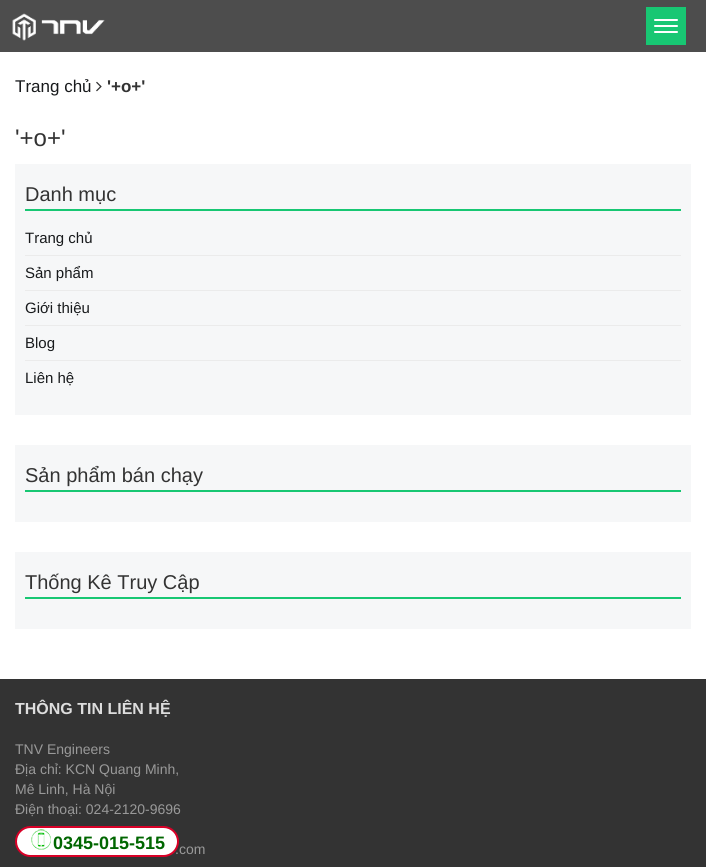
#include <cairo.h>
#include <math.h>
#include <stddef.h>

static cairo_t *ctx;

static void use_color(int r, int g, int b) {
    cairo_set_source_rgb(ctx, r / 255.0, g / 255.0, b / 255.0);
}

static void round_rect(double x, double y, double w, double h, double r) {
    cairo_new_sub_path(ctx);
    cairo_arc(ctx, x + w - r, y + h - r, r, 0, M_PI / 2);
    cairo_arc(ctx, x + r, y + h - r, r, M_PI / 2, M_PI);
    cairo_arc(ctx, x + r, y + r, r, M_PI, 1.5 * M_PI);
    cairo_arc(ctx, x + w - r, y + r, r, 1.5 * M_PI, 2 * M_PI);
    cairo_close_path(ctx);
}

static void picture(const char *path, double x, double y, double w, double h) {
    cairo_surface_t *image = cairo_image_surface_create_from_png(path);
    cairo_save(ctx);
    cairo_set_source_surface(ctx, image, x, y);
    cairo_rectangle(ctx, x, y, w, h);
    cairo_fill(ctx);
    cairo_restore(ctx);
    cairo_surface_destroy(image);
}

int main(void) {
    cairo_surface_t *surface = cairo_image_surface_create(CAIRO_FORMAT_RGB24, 706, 867);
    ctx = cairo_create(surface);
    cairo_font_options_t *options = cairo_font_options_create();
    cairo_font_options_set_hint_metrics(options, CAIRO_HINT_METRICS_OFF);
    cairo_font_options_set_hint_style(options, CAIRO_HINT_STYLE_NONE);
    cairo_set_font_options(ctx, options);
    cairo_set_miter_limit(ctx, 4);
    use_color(255, 255, 255);
    cairo_paint(ctx);
    use_color(77, 77, 77);
    cairo_rectangle(ctx, 0, 0, 706, 52);
    cairo_fill(ctx);
    picture("img1.png", 12, 13, 93, 28);
    use_color(24, 199, 115);
    cairo_rectangle(ctx, 646, 7, 40, 38);
    cairo_fill(ctx);
    use_color(255, 255, 255);
    round_rect(654, 19, 24, 2, 1);
    cairo_fill(ctx);
    round_rect(654, 25, 24, 2, 1);
    cairo_fill(ctx);
    round_rect(654, 31, 24, 2, 1);
    cairo_fill(ctx);
    cairo_select_font_face(ctx, "Liberation Sans", CAIRO_FONT_SLANT_NORMAL, CAIRO_FONT_WEIGHT_NORMAL);
    cairo_set_font_size(ctx, 17);
    use_color(24, 26, 28);
    cairo_move_to(ctx, 15, 92);
    cairo_show_text(ctx, "Trang chủ");
    picture("img2.png", 96, 81, 6, 11);
    cairo_select_font_face(ctx, "Liberation Sans", CAIRO_FONT_SLANT_NORMAL, CAIRO_FONT_WEIGHT_BOLD);
    use_color(51, 51, 51);
    cairo_move_to(ctx, 107, 92);
    cairo_show_text(ctx, "'+o+'");
    cairo_select_font_face(ctx, "Liberation Sans", CAIRO_FONT_SLANT_NORMAL, CAIRO_FONT_WEIGHT_NORMAL);
    cairo_set_font_size(ctx, 24);
    cairo_move_to(ctx, 15, 146);
    cairo_show_text(ctx, "'+o+'");
    use_color(246, 247, 248);
    cairo_rectangle(ctx, 15, 164, 676, 251);
    cairo_fill(ctx);
    use_color(24, 199, 115);
    cairo_rectangle(ctx, 25, 209, 656, 2);
    cairo_fill(ctx);
    cairo_set_font_size(ctx, 20);
    use_color(51, 51, 51);
    cairo_move_to(ctx, 25, 201);
    cairo_show_text(ctx, "Danh mục");
    use_color(235, 235, 235);
    cairo_rectangle(ctx, 25, 255, 656, 1);
    cairo_fill(ctx);
    cairo_set_font_size(ctx, 15);
    use_color(24, 26, 28);
    cairo_move_to(ctx, 25, 243);
    cairo_show_text(ctx, "Trang chủ");
    use_color(235, 235, 235);
    cairo_rectangle(ctx, 25, 290, 656, 1);
    cairo_fill(ctx);
    use_color(24, 26, 28);
    cairo_move_to(ctx, 25, 278);
    cairo_show_text(ctx, "Sản phẩm");
    use_color(235, 235, 235);
    cairo_rectangle(ctx, 25, 325, 656, 1);
    cairo_fill(ctx);
    use_color(24, 26, 28);
    cairo_move_to(ctx, 25, 313);
    cairo_show_text(ctx, "Giới thiệu");
    use_color(235, 235, 235);
    cairo_rectangle(ctx, 25, 360, 656, 1);
    cairo_fill(ctx);
    use_color(24, 26, 28);
    cairo_move_to(ctx, 25, 348);
    cairo_show_text(ctx, "Blog");
    cairo_move_to(ctx, 25, 383);
    cairo_show_text(ctx, "Liên hệ");
    use_color(246, 247, 248);
    cairo_rectangle(ctx, 15, 445, 676, 77);
    cairo_fill(ctx);
    use_color(24, 199, 115);
    cairo_rectangle(ctx, 25, 490, 656, 2);
    cairo_fill(ctx);
    cairo_set_font_size(ctx, 20);
    use_color(51, 51, 51);
    cairo_move_to(ctx, 25, 482);
    cairo_show_text(ctx, "Sản phẩm bán chạy");
    use_color(246, 247, 248);
    cairo_rectangle(ctx, 15, 552, 676, 77);
    cairo_fill(ctx);
    use_color(24, 199, 115);
    cairo_rectangle(ctx, 25, 597, 656, 2);
    cairo_fill(ctx);
    use_color(51, 51, 51);
    cairo_move_to(ctx, 25, 589);
    cairo_show_text(ctx, "Thống Kê Truy Cập");
    cairo_rectangle(ctx, 0, 679, 706, 188);
    cairo_fill(ctx);
    cairo_select_font_face(ctx, "Liberation Sans", CAIRO_FONT_SLANT_NORMAL, CAIRO_FONT_WEIGHT_BOLD);
    cairo_set_font_size(ctx, 16);
    use_color(221, 221, 221);
    cairo_move_to(ctx, 15, 714);
    cairo_show_text(ctx, "THÔNG TIN LIÊN HỆ");
    cairo_select_font_face(ctx, "Liberation Sans", CAIRO_FONT_SLANT_NORMAL, CAIRO_FONT_WEIGHT_NORMAL);
    cairo_set_font_size(ctx, 14);
    use_color(153, 153, 153);
    cairo_move_to(ctx, 15, 754);
    cairo_show_text(ctx, "TNV Engineers");
    cairo_move_to(ctx, 15, 774);
    cairo_show_text(ctx, "Địa chỉ: KCN Quang Minh,");
    cairo_move_to(ctx, 15, 794);
    cairo_show_text(ctx, "Mê Linh, Hà Nội");
    cairo_move_to(ctx, 15, 814);
    cairo_show_text(ctx, "Điện thoại: 024-2120-9696");
    cairo_move_to(ctx, 175, 854);
    cairo_show_text(ctx, ".com");
    use_color(255, 255, 255);
    round_rect(16, 827, 162, 29, 14.5);
    cairo_fill_preserve(ctx);
    use_color(216, 0, 39);
    cairo_stroke(ctx);
    picture("img3.png", 31, 829, 20, 21);
    cairo_select_font_face(ctx, "Liberation Sans", CAIRO_FONT_SLANT_NORMAL, CAIRO_FONT_WEIGHT_BOLD);
    cairo_set_font_size(ctx, 18);
    use_color(0, 102, 0);
    cairo_move_to(ctx, 53, 849);
    cairo_show_text(ctx, "0345-015-515");
    cairo_surface_write_to_png(surface, "result.png");
    cairo_font_options_destroy(options);
    cairo_destroy(ctx);
    cairo_surface_destroy(surface);
    return 0;
}
